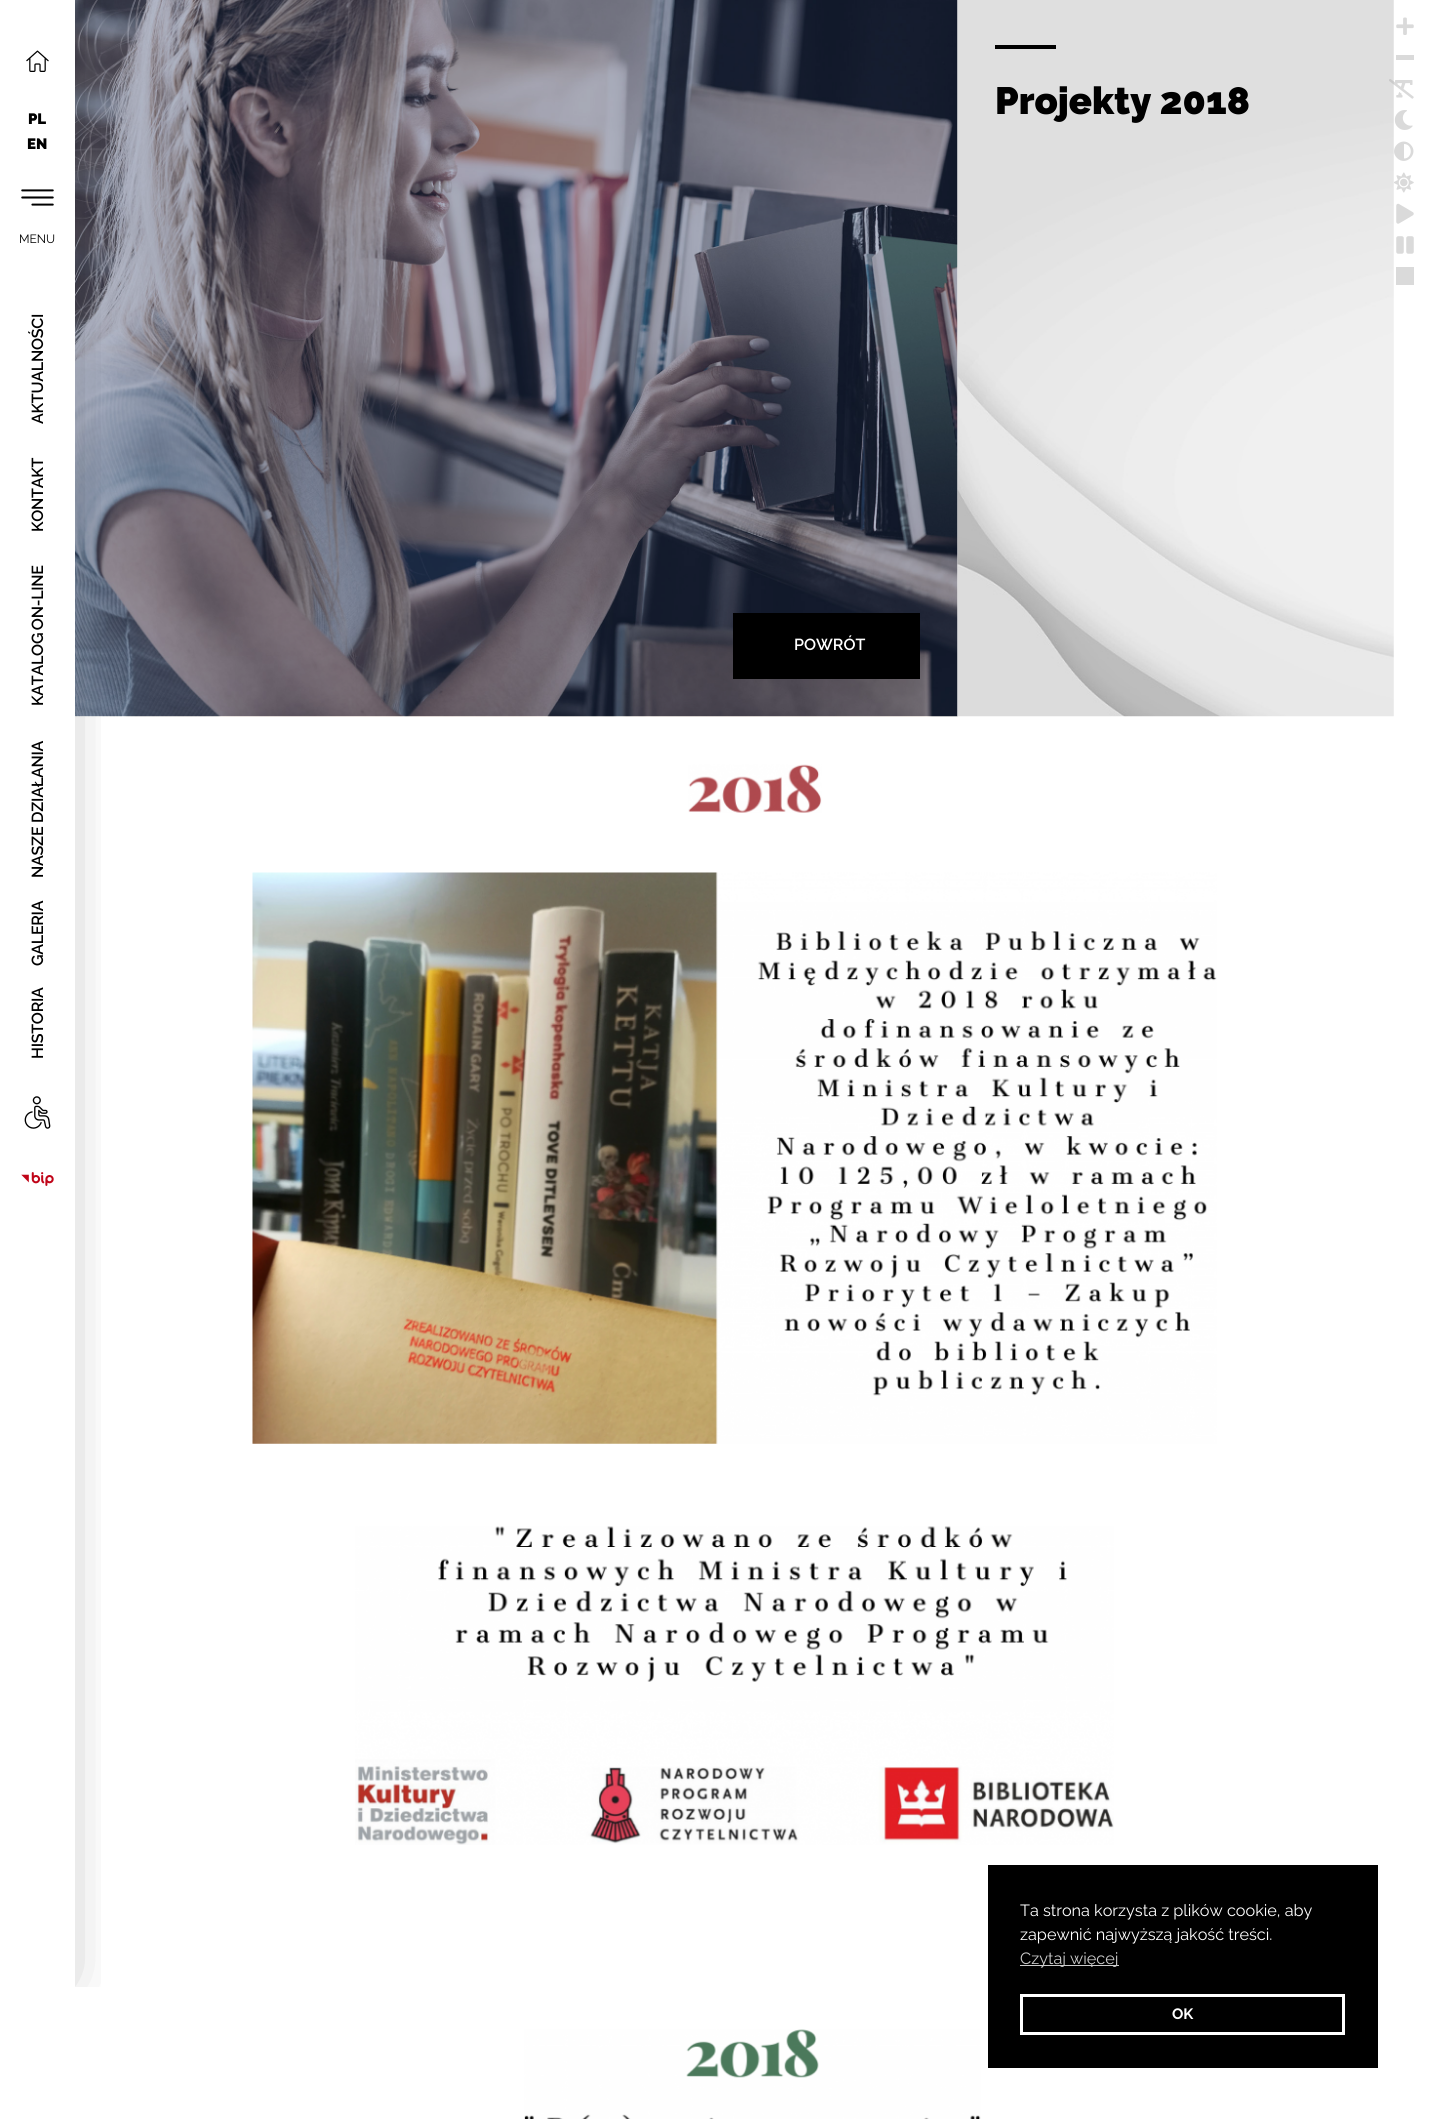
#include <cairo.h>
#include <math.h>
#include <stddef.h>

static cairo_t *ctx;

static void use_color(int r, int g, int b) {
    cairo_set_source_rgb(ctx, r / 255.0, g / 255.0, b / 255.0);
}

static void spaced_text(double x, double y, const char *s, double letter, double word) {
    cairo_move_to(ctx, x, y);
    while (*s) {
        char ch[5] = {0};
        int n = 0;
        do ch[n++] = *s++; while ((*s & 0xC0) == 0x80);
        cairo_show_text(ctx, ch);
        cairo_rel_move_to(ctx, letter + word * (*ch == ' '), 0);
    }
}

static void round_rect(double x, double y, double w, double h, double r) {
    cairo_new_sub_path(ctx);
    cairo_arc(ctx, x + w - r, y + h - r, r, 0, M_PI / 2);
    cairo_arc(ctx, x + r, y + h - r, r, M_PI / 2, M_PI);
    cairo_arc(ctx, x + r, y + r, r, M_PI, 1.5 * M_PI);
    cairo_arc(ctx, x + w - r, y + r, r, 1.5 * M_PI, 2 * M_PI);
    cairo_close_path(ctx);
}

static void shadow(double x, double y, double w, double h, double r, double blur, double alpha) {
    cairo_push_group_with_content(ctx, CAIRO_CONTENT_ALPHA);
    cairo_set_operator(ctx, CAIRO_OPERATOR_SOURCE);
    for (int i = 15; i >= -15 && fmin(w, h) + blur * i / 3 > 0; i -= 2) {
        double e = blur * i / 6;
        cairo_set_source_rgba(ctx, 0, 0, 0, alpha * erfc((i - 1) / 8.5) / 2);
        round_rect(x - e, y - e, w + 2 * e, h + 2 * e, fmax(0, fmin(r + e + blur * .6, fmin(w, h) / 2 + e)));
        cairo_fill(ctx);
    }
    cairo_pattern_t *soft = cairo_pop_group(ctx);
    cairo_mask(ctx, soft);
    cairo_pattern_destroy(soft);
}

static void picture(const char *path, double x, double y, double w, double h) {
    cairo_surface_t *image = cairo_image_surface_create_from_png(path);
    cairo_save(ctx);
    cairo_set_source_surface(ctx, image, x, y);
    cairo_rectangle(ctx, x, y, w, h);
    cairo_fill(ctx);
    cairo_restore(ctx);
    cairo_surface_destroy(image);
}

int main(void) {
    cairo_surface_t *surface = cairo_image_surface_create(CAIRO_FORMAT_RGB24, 1430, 2119);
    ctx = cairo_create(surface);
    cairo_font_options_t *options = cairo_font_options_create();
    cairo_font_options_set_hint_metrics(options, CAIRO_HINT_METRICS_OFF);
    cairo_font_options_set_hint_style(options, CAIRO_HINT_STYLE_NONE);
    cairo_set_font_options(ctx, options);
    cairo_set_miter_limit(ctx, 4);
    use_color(255, 255, 255);
    cairo_paint(ctx);
    picture("img12.png", 75, 0, 883, 717);
    cairo_save(ctx);
    cairo_rectangle(ctx, 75, 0, 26, 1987);
    cairo_clip(ctx);
    use_color(0, 0, 0);
    shadow(26, -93, 23, 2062, 0, 31, 0.5);
    cairo_restore(ctx);
    picture("img1.png", 26, 50, 23, 22);
    cairo_select_font_face(ctx, "Raleway Black", CAIRO_FONT_SLANT_NORMAL, CAIRO_FONT_WEIGHT_NORMAL);
    cairo_set_font_size(ctx, 15);
    use_color(0, 0, 0);
    cairo_move_to(ctx, 28, 124);
    cairo_show_text(ctx, "PL");
    cairo_move_to(ctx, 27, 149);
    cairo_show_text(ctx, "EN");
    picture("img2.png", 21, 189, 33, 17);
    cairo_select_font_face(ctx, "Raleway", CAIRO_FONT_SLANT_NORMAL, CAIRO_FONT_WEIGHT_NORMAL);
    cairo_set_font_size(ctx, 12);
    cairo_move_to(ctx, 19, 243);
    cairo_show_text(ctx, "MENU");
    cairo_select_font_face(ctx, "Raleway SemiBold", CAIRO_FONT_SLANT_NORMAL, CAIRO_FONT_WEIGHT_NORMAL);
    cairo_set_font_size(ctx, 16);
    cairo_save(ctx);
    cairo_translate(ctx, 43, 424);
    cairo_rotate(ctx, -90 * M_PI / 180);
    spaced_text(0, 0, "AKTUALNOŚCI", -0.25, 0);
    cairo_restore(ctx);
    cairo_save(ctx);
    cairo_translate(ctx, 43, 532);
    cairo_rotate(ctx, -90 * M_PI / 180);
    spaced_text(0, 0, "KONTAKT", -0.25, 0);
    cairo_restore(ctx);
    cairo_save(ctx);
    cairo_translate(ctx, 43, 706);
    cairo_rotate(ctx, -90 * M_PI / 180);
    spaced_text(0, 0, "KATALOG ON-LINE", -0.25, -1);
    cairo_restore(ctx);
    cairo_save(ctx);
    cairo_translate(ctx, 43, 878);
    cairo_rotate(ctx, -90 * M_PI / 180);
    spaced_text(0, 0, "NASZE DZIAŁANIA", -0.25, 0);
    cairo_restore(ctx);
    cairo_save(ctx);
    cairo_translate(ctx, 43, 966);
    cairo_rotate(ctx, -90 * M_PI / 180);
    spaced_text(0, 0, "GALERIA", -0.25, 0);
    cairo_restore(ctx);
    cairo_save(ctx);
    cairo_translate(ctx, 43, 1059);
    cairo_rotate(ctx, -90 * M_PI / 180);
    spaced_text(0, 0, "HISTORIA", -0.25, 0);
    cairo_restore(ctx);
    picture("img3.png", 24, 1096, 27, 33);
    picture("img4.png", 21, 1172, 33, 14);
    picture("img5.png", 1396, 17, 18, 18);
    use_color(218, 218, 218);
    cairo_rectangle(ctx, 1396, 55, 18, 5);
    cairo_fill(ctx);
    picture("img11.png", 957, 0, 437, 717);
    picture("img6.png", 1389, 79, 25, 20);
    picture("img7.png", 1394, 110, 19, 20);
    cairo_new_path(ctx);
    cairo_move_to(ctx, 1397, 158);
    cairo_curve_to(ctx, 1388, 149, 1401.5, 135.5, 1410.5, 144.5);
    cairo_curve_to(ctx, 1419.5, 153.5, 1406, 167, 1397, 158);
    cairo_close_path(ctx);
    cairo_move_to(ctx, 1404, 158.5);
    cairo_curve_to(ctx, 1413, 158.5, 1413, 144, 1404, 144);
    cairo_close_path(ctx);
    cairo_fill(ctx);
    picture("img8.png", 1394, 172, 20, 21);
    picture("img9.png", 1396, 203, 18, 21);
    picture("img10.png", 1396, 236, 18, 18);
    cairo_rectangle(ctx, 1396, 267, 18, 18);
    cairo_fill(ctx);
    use_color(0, 0, 0);
    cairo_rectangle(ctx, 995, 45, 61, 4);
    cairo_fill(ctx);
    cairo_select_font_face(ctx, "Raleway Black", CAIRO_FONT_SLANT_NORMAL, CAIRO_FONT_WEIGHT_NORMAL);
    cairo_set_font_size(ctx, 38);
    cairo_move_to(ctx, 995, 114);
    cairo_show_text(ctx, "Projekty 2018");
    cairo_rectangle(ctx, 733, 613, 187, 66);
    cairo_fill(ctx);
    cairo_select_font_face(ctx, "Raleway SemiBold", CAIRO_FONT_SLANT_NORMAL, CAIRO_FONT_WEIGHT_NORMAL);
    cairo_set_font_size(ctx, 16);
    use_color(255, 255, 255);
    cairo_move_to(ctx, 794, 650);
    cairo_show_text(ctx, "POWRÓT");
    picture("img13.png", 688, 764, 134, 49);
    picture("img14.png", 252, 872, 965, 572);
    picture("img15.png", 355, 1526, 759, 319);
    picture("img16.png", 524, 2029, 457, 90);
    use_color(0, 0, 0);
    cairo_rectangle(ctx, 988, 1865, 390, 203);
    cairo_fill(ctx);
    cairo_select_font_face(ctx, "Raleway", CAIRO_FONT_SLANT_NORMAL, CAIRO_FONT_WEIGHT_NORMAL);
    cairo_set_font_size(ctx, 16.25);
    use_color(255, 255, 255);
    cairo_move_to(ctx, 1020, 1916);
    cairo_show_text(ctx, "Ta strona korzysta z plików cookie, aby");
    cairo_move_to(ctx, 1020, 1940);
    cairo_show_text(ctx, "zapewnić najwyższą jakość treści.");
    use_color(204, 204, 204);
    cairo_rectangle(ctx, 1020, 1965, 99, 1);
    cairo_fill(ctx);
    cairo_move_to(ctx, 1020, 1964);
    cairo_show_text(ctx, "Czytaj więcej");
    cairo_rectangle(ctx, 1021.5, 1995.5, 322, 38);
    use_color(255, 255, 255);
    cairo_set_line_width(ctx, 3);
    cairo_stroke(ctx);
    cairo_select_font_face(ctx, "Raleway", CAIRO_FONT_SLANT_NORMAL, CAIRO_FONT_WEIGHT_BOLD);
    cairo_set_font_size(ctx, 15);
    cairo_move_to(ctx, 1172, 2019);
    cairo_show_text(ctx, "OK");
    cairo_surface_write_to_png(surface, "result.png");
    cairo_font_options_destroy(options);
    cairo_destroy(ctx);
    cairo_surface_destroy(surface);
    return 0;
}
